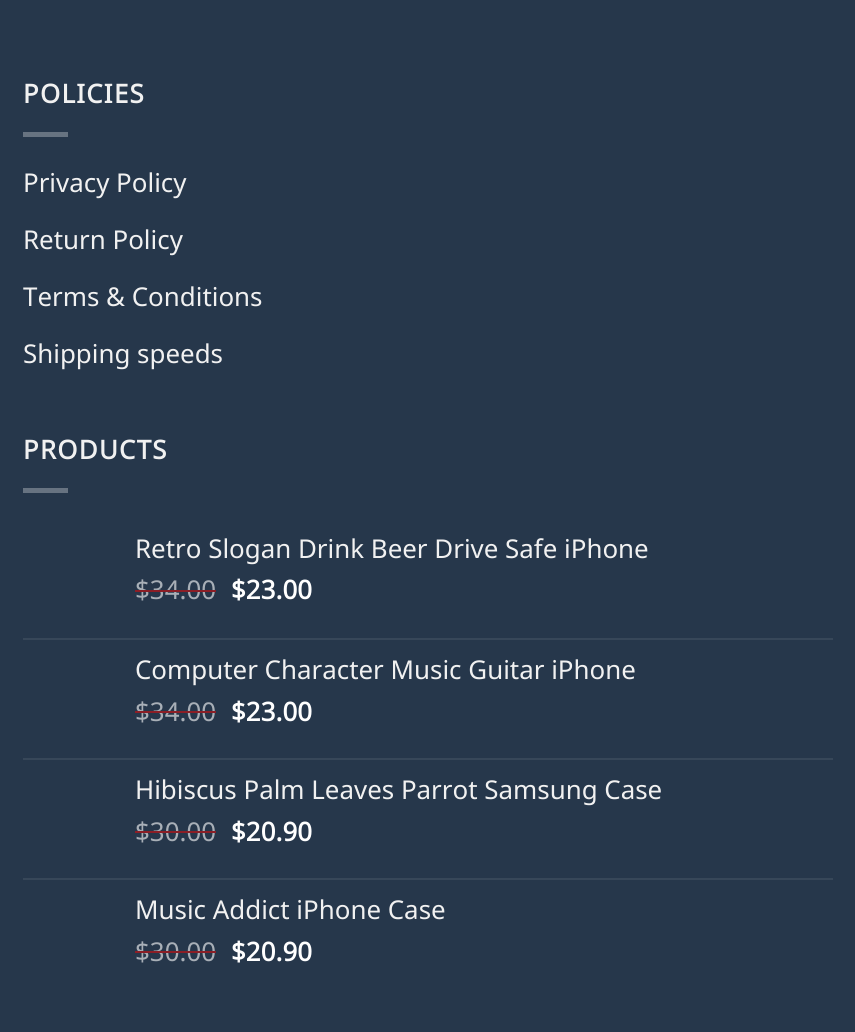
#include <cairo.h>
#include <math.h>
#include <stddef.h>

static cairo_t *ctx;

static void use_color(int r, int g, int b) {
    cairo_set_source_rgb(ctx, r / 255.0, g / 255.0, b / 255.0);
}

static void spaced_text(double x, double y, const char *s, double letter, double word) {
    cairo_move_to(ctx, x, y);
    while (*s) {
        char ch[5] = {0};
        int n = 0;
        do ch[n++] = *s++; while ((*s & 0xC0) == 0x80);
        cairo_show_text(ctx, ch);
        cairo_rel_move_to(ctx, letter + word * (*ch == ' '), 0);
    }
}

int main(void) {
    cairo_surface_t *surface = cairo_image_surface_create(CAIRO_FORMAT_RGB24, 855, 1032);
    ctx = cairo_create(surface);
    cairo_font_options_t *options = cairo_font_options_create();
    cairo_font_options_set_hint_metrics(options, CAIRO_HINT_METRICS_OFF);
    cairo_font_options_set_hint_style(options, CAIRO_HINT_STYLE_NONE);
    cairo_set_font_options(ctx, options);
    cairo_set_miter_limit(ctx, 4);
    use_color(38, 55, 75);
    cairo_paint(ctx);
    cairo_select_font_face(ctx, "Noto Sans Buhid", CAIRO_FONT_SLANT_NORMAL, CAIRO_FONT_WEIGHT_BOLD);
    cairo_set_font_size(ctx, 25.9);
    use_color(241, 241, 241);
    spaced_text(23, 103, "POLICIES", 1.25, 0);
    use_color(103, 115, 129);
    cairo_rectangle(ctx, 23, 132, 45, 5);
    cairo_fill(ctx);
    cairo_select_font_face(ctx, "Noto Sans Buhid", CAIRO_FONT_SLANT_NORMAL, CAIRO_FONT_WEIGHT_NORMAL);
    use_color(241, 241, 241);
    cairo_move_to(ctx, 23, 192);
    cairo_show_text(ctx, "Privacy Policy");
    cairo_move_to(ctx, 23, 249);
    cairo_show_text(ctx, "Return Policy");
    cairo_move_to(ctx, 23, 306);
    cairo_show_text(ctx, "Terms & Conditions");
    cairo_move_to(ctx, 23, 363);
    cairo_show_text(ctx, "Shipping speeds");
    cairo_select_font_face(ctx, "Noto Sans Buhid", CAIRO_FONT_SLANT_NORMAL, CAIRO_FONT_WEIGHT_BOLD);
    spaced_text(23, 459, "PRODUCTS", 1.25, 0);
    use_color(103, 115, 129);
    cairo_rectangle(ctx, 23, 488, 45, 5);
    cairo_fill(ctx);
    cairo_select_font_face(ctx, "Noto Sans Buhid", CAIRO_FONT_SLANT_NORMAL, CAIRO_FONT_WEIGHT_NORMAL);
    use_color(241, 241, 241);
    cairo_move_to(ctx, 135, 558);
    cairo_show_text(ctx, "Retro Slogan Drink Beer Drive Safe iPhone");
    use_color(168, 175, 183);
    cairo_move_to(ctx, 135, 599);
    cairo_show_text(ctx, "$34.00");
    use_color(139, 30, 38);
    cairo_rectangle(ctx, 135, 590, 81, 2);
    cairo_fill(ctx);
    cairo_select_font_face(ctx, "Noto Sans Buhid", CAIRO_FONT_SLANT_NORMAL, CAIRO_FONT_WEIGHT_BOLD);
    use_color(255, 255, 255);
    cairo_move_to(ctx, 231, 599);
    cairo_show_text(ctx, "$23.00");
    use_color(55, 71, 89);
    cairo_rectangle(ctx, 23, 638, 810, 2);
    cairo_fill(ctx);
    cairo_select_font_face(ctx, "Noto Sans Buhid", CAIRO_FONT_SLANT_NORMAL, CAIRO_FONT_WEIGHT_NORMAL);
    use_color(241, 241, 241);
    cairo_move_to(ctx, 135, 679);
    cairo_show_text(ctx, "Computer Character Music Guitar iPhone");
    use_color(168, 175, 183);
    cairo_move_to(ctx, 135, 721);
    cairo_show_text(ctx, "$34.00");
    use_color(139, 30, 38);
    cairo_rectangle(ctx, 135, 711, 81, 2);
    cairo_fill(ctx);
    cairo_select_font_face(ctx, "Noto Sans Buhid", CAIRO_FONT_SLANT_NORMAL, CAIRO_FONT_WEIGHT_BOLD);
    use_color(255, 255, 255);
    cairo_move_to(ctx, 231, 721);
    cairo_show_text(ctx, "$23.00");
    use_color(55, 71, 89);
    cairo_rectangle(ctx, 23, 758, 810, 2);
    cairo_fill(ctx);
    cairo_select_font_face(ctx, "Noto Sans Buhid", CAIRO_FONT_SLANT_NORMAL, CAIRO_FONT_WEIGHT_NORMAL);
    use_color(241, 241, 241);
    cairo_move_to(ctx, 135, 799);
    cairo_show_text(ctx, "Hibiscus Palm Leaves Parrot Samsung Case");
    use_color(168, 175, 183);
    cairo_move_to(ctx, 135, 841);
    cairo_show_text(ctx, "$30.00");
    use_color(139, 30, 38);
    cairo_rectangle(ctx, 135, 831, 81, 2);
    cairo_fill(ctx);
    cairo_select_font_face(ctx, "Noto Sans Buhid", CAIRO_FONT_SLANT_NORMAL, CAIRO_FONT_WEIGHT_BOLD);
    use_color(255, 255, 255);
    cairo_move_to(ctx, 231, 841);
    cairo_show_text(ctx, "$20.90");
    use_color(55, 71, 89);
    cairo_rectangle(ctx, 23, 878, 810, 2);
    cairo_fill(ctx);
    cairo_select_font_face(ctx, "Noto Sans Buhid", CAIRO_FONT_SLANT_NORMAL, CAIRO_FONT_WEIGHT_NORMAL);
    use_color(241, 241, 241);
    cairo_move_to(ctx, 135, 919);
    cairo_show_text(ctx, "Music Addict iPhone Case");
    use_color(168, 175, 183);
    cairo_move_to(ctx, 135, 961);
    cairo_show_text(ctx, "$30.00");
    use_color(139, 30, 38);
    cairo_rectangle(ctx, 135, 951, 81, 2);
    cairo_fill(ctx);
    cairo_select_font_face(ctx, "Noto Sans Buhid", CAIRO_FONT_SLANT_NORMAL, CAIRO_FONT_WEIGHT_BOLD);
    use_color(255, 255, 255);
    cairo_move_to(ctx, 231, 961);
    cairo_show_text(ctx, "$20.90");
    cairo_surface_write_to_png(surface, "result.png");
    cairo_font_options_destroy(options);
    cairo_destroy(ctx);
    cairo_surface_destroy(surface);
    return 0;
}
